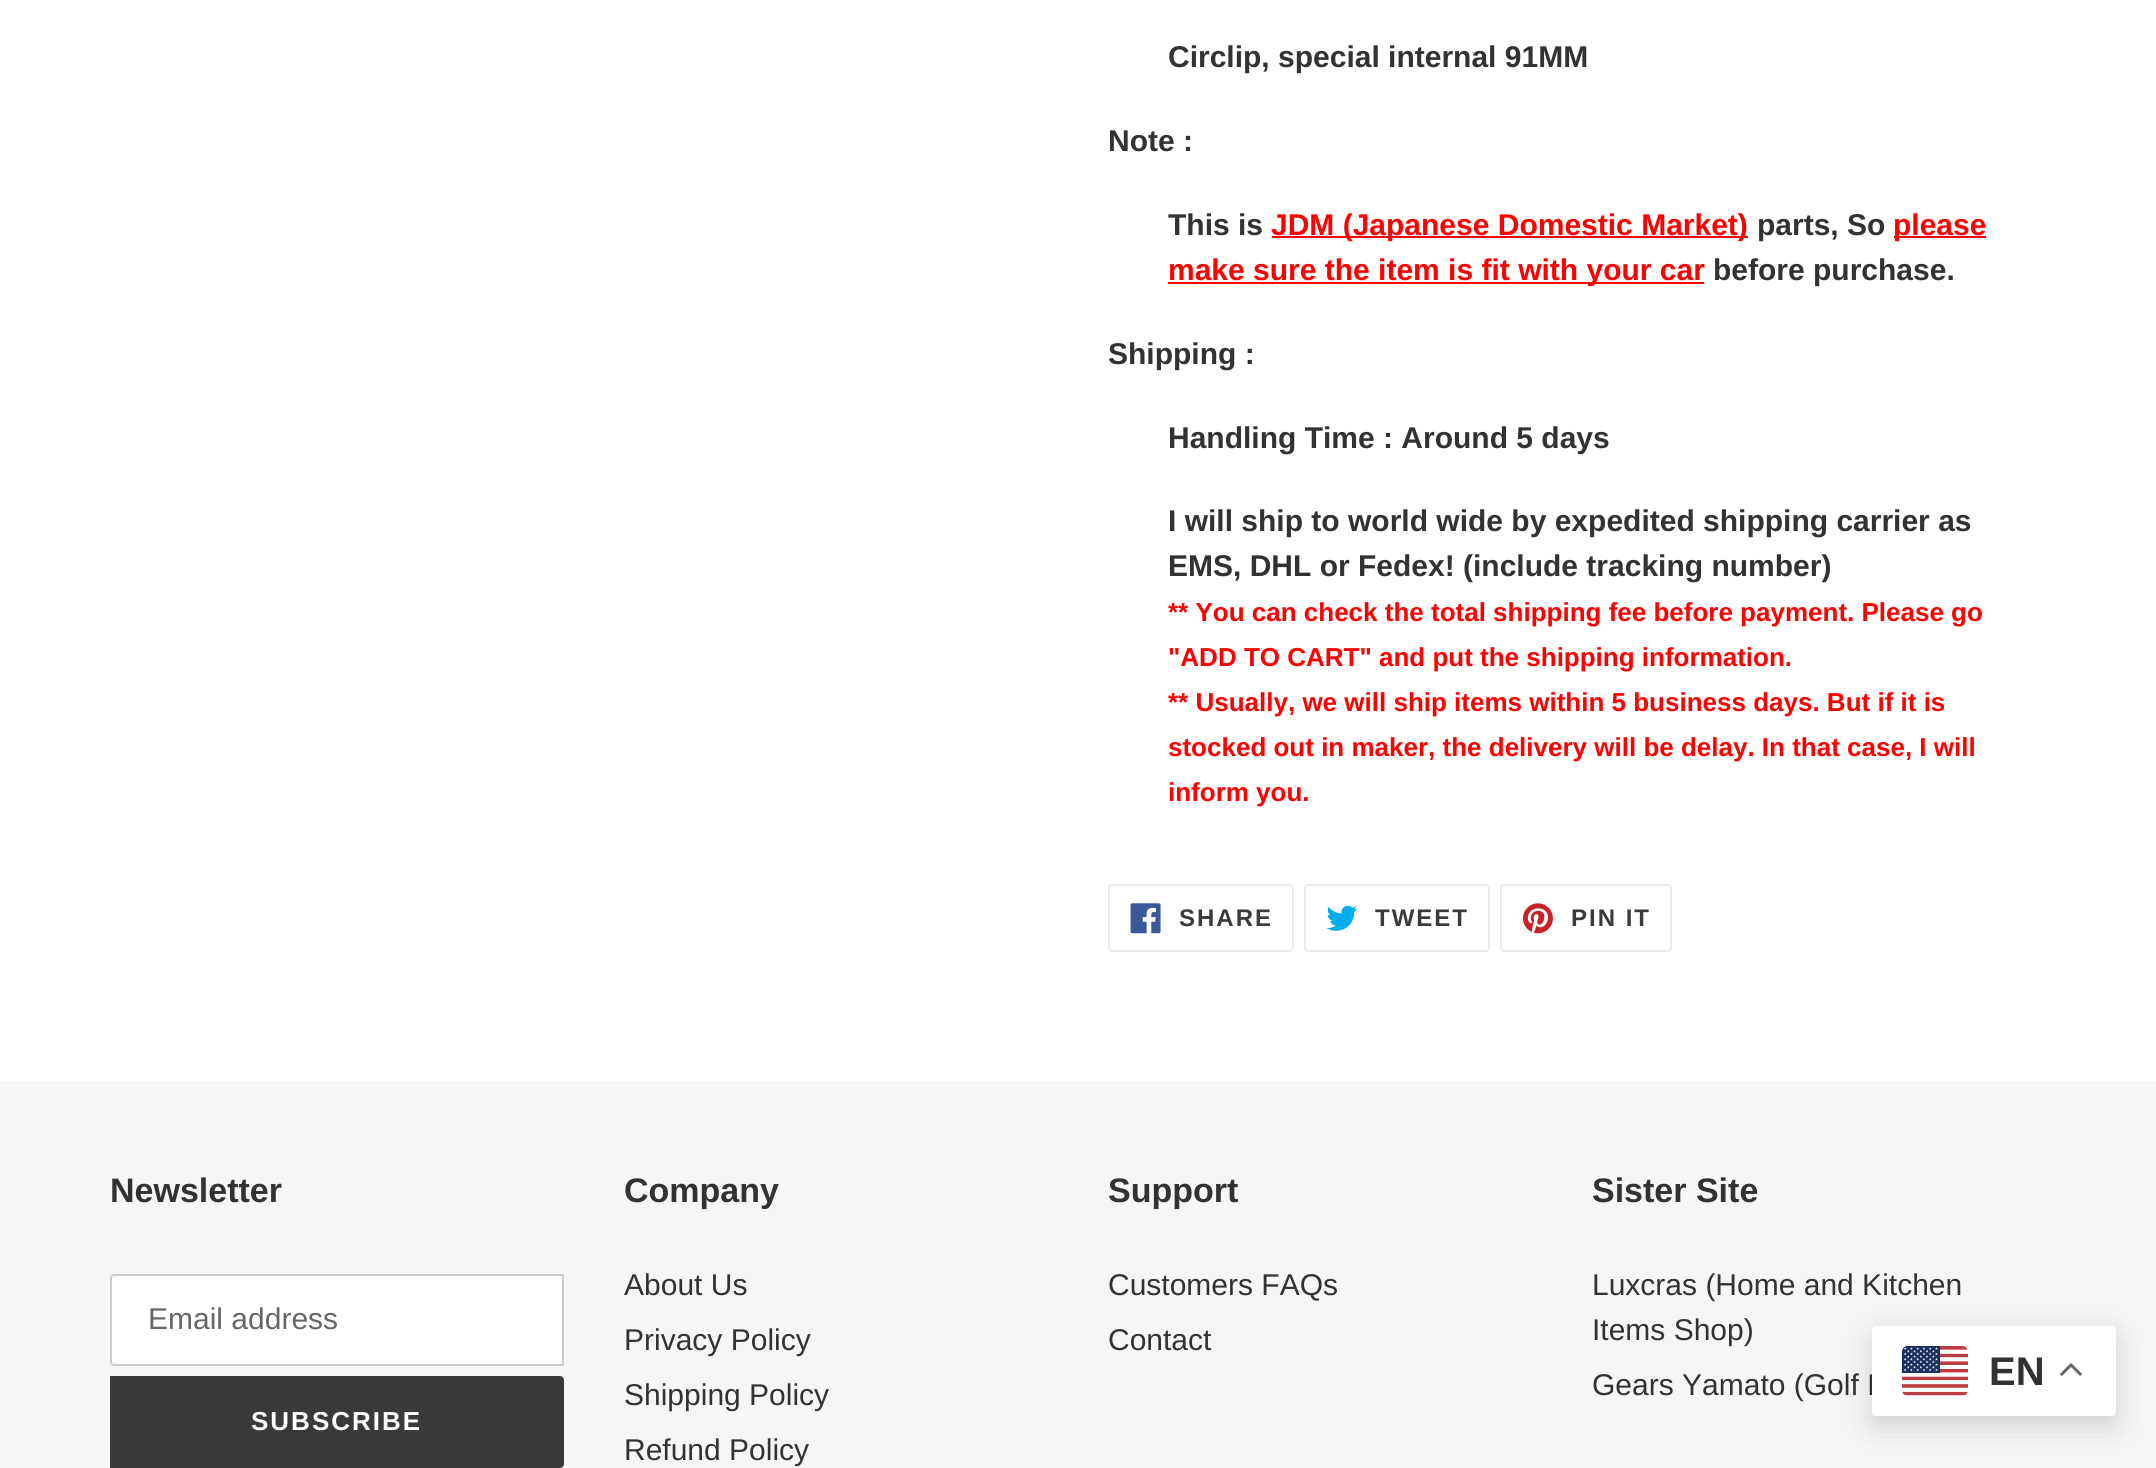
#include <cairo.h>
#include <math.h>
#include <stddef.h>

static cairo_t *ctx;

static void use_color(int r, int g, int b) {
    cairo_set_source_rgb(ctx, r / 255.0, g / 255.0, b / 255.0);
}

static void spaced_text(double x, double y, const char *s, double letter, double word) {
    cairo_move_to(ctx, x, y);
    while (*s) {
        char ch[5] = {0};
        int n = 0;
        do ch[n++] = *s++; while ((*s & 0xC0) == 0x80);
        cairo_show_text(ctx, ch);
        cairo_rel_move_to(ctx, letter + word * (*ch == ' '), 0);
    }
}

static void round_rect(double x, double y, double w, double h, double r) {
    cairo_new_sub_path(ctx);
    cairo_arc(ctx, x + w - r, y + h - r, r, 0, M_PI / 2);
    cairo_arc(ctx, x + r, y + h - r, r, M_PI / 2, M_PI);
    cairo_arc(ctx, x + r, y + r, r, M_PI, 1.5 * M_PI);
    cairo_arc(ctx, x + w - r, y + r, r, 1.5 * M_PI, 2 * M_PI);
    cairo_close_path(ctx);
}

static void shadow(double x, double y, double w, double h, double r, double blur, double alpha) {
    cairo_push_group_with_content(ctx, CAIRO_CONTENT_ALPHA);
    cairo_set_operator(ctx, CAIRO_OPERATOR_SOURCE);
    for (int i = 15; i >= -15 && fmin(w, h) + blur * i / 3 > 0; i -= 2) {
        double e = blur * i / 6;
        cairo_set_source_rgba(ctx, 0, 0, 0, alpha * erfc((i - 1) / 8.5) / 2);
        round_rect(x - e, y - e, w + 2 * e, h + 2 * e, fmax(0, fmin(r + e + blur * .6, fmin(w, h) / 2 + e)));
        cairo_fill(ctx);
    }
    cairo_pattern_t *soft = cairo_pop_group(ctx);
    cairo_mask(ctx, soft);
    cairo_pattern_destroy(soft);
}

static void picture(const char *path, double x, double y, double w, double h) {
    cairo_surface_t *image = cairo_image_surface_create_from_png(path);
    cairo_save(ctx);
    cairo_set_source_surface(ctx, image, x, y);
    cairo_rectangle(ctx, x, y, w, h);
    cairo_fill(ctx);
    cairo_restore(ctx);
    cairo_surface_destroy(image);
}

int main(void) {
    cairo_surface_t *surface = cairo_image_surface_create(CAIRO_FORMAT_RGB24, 2156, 1468);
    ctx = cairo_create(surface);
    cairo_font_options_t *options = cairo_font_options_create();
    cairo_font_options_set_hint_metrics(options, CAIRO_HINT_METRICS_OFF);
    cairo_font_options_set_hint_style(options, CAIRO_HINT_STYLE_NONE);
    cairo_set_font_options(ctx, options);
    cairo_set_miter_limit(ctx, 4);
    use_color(255, 255, 255);
    cairo_paint(ctx);
    cairo_select_font_face(ctx, "Liberation Sans", CAIRO_FONT_SLANT_NORMAL, CAIRO_FONT_WEIGHT_BOLD);
    cairo_set_font_size(ctx, 30);
    use_color(51, 50, 50);
    cairo_move_to(ctx, 1168, 67);
    cairo_show_text(ctx, "Circlip, special internal 91MM");
    cairo_move_to(ctx, 1108, 151);
    cairo_show_text(ctx, "Note :");
    cairo_move_to(ctx, 1168, 235);
    cairo_show_text(ctx, "This is");
    use_color(255, 0, 0);
    cairo_rectangle(ctx, 1272, 236, 476, 2);
    cairo_fill(ctx);
    cairo_move_to(ctx, 1271, 235);
    cairo_show_text(ctx, "JDM (Japanese Domestic Market)");
    use_color(51, 50, 50);
    cairo_move_to(ctx, 1757, 235);
    cairo_show_text(ctx, "parts, So");
    use_color(255, 0, 0);
    cairo_rectangle(ctx, 1894, 236, 92, 2);
    cairo_fill(ctx);
    cairo_move_to(ctx, 1893, 235);
    cairo_show_text(ctx, "please");
    cairo_rectangle(ctx, 1168, 282, 536, 2);
    cairo_fill(ctx);
    cairo_move_to(ctx, 1168, 280);
    cairo_show_text(ctx, "make sure the item is fit with your car");
    use_color(51, 50, 50);
    cairo_move_to(ctx, 1713, 280);
    cairo_show_text(ctx, "before purchase.");
    cairo_move_to(ctx, 1108, 364);
    cairo_show_text(ctx, "Shipping :");
    cairo_move_to(ctx, 1168, 448);
    cairo_show_text(ctx, "Handling Time : Around 5 days");
    cairo_move_to(ctx, 1168, 531);
    cairo_show_text(ctx, "I will ship to world wide by expedited shipping carrier as");
    cairo_move_to(ctx, 1168, 576);
    cairo_show_text(ctx, "EMS, DHL or Fedex! (include tracking number)");
    cairo_set_font_size(ctx, 26);
    use_color(255, 0, 0);
    cairo_move_to(ctx, 1168, 621);
    cairo_show_text(ctx, "** You can check the total shipping fee before payment. Please go");
    cairo_move_to(ctx, 1168, 666);
    cairo_show_text(ctx, "\"ADD TO CART\" and put the shipping information.");
    cairo_move_to(ctx, 1168, 711);
    cairo_show_text(ctx, "** Usually, we will ship items within 5 business days. But if it is");
    cairo_move_to(ctx, 1168, 756);
    cairo_show_text(ctx, "stocked out in maker, the delivery will be delay. In that case, I will");
    cairo_move_to(ctx, 1168, 801);
    cairo_show_text(ctx, "inform you.");
    round_rect(1109, 885, 184, 66, 3);
    use_color(235, 235, 235);
    cairo_stroke(ctx);
    picture("img1.png", 1130, 903, 31, 31);
    cairo_set_font_size(ctx, 24);
    use_color(58, 58, 58);
    spaced_text(1179, 926, "SHARE", 2, 0);
    round_rect(1305, 885, 184, 66, 3);
    use_color(235, 235, 235);
    cairo_stroke(ctx);
    picture("img2.png", 1326, 905, 32, 26);
    use_color(58, 58, 58);
    spaced_text(1375, 926, "TWEET", 2, 0);
    round_rect(1501, 885, 170, 66, 3);
    use_color(235, 235, 235);
    cairo_stroke(ctx);
    picture("img3.png", 1522, 903, 31, 31);
    use_color(58, 58, 58);
    spaced_text(1571, 926, "PIN IT", 2, 0);
    use_color(246, 246, 246);
    cairo_rectangle(ctx, 0, 1082, 2156, 386);
    cairo_fill(ctx);
    cairo_set_font_size(ctx, 34);
    use_color(51, 50, 50);
    cairo_move_to(ctx, 110, 1202);
    cairo_show_text(ctx, "Newsletter");
    use_color(255, 255, 255);
    cairo_new_path(ctx);
    cairo_move_to(ctx, 114, 1275);
    cairo_line_to(ctx, 563, 1275);
    cairo_line_to(ctx, 563, 1365);
    cairo_line_to(ctx, 114, 1365);
    cairo_curve_to(ctx, 112.5, 1365, 111, 1363.5, 111, 1362);
    cairo_line_to(ctx, 111, 1278);
    cairo_curve_to(ctx, 111, 1276.5, 112.5, 1275, 114, 1275);
    cairo_close_path(ctx);
    cairo_fill_preserve(ctx);
    use_color(204, 204, 204);
    cairo_stroke(ctx);
    cairo_select_font_face(ctx, "Liberation Sans", CAIRO_FONT_SLANT_NORMAL, CAIRO_FONT_WEIGHT_NORMAL);
    cairo_set_font_size(ctx, 30);
    use_color(102, 102, 102);
    cairo_move_to(ctx, 148, 1329);
    cairo_show_text(ctx, "Email address");
    use_color(58, 58, 58);
    cairo_new_path(ctx);
    cairo_move_to(ctx, 110, 1376);
    cairo_line_to(ctx, 560, 1376);
    cairo_curve_to(ctx, 562, 1376, 564, 1378, 564, 1380);
    cairo_line_to(ctx, 564, 1464);
    cairo_curve_to(ctx, 564, 1466, 562, 1468, 560, 1468);
    cairo_line_to(ctx, 110, 1468);
    cairo_close_path(ctx);
    cairo_fill(ctx);
    cairo_select_font_face(ctx, "Liberation Sans", CAIRO_FONT_SLANT_NORMAL, CAIRO_FONT_WEIGHT_BOLD);
    cairo_set_font_size(ctx, 26);
    use_color(255, 255, 255);
    spaced_text(251, 1430, "SUBSCRIBE", 2, 0);
    cairo_set_font_size(ctx, 34);
    use_color(51, 50, 50);
    cairo_move_to(ctx, 624, 1202);
    cairo_show_text(ctx, "Company");
    cairo_select_font_face(ctx, "Liberation Sans", CAIRO_FONT_SLANT_NORMAL, CAIRO_FONT_WEIGHT_NORMAL);
    cairo_set_font_size(ctx, 30);
    cairo_move_to(ctx, 624, 1295);
    cairo_show_text(ctx, "About Us");
    cairo_move_to(ctx, 624, 1350);
    cairo_show_text(ctx, "Privacy Policy");
    cairo_move_to(ctx, 624, 1405);
    cairo_show_text(ctx, "Shipping Policy");
    cairo_move_to(ctx, 624, 1460);
    cairo_show_text(ctx, "Refund Policy");
    cairo_select_font_face(ctx, "Liberation Sans", CAIRO_FONT_SLANT_NORMAL, CAIRO_FONT_WEIGHT_BOLD);
    cairo_set_font_size(ctx, 34);
    cairo_move_to(ctx, 1108, 1202);
    cairo_show_text(ctx, "Support");
    cairo_select_font_face(ctx, "Liberation Sans", CAIRO_FONT_SLANT_NORMAL, CAIRO_FONT_WEIGHT_NORMAL);
    cairo_set_font_size(ctx, 30);
    cairo_move_to(ctx, 1108, 1295);
    cairo_show_text(ctx, "Customers FAQs");
    cairo_move_to(ctx, 1108, 1350);
    cairo_show_text(ctx, "Contact");
    cairo_select_font_face(ctx, "Liberation Sans", CAIRO_FONT_SLANT_NORMAL, CAIRO_FONT_WEIGHT_BOLD);
    cairo_set_font_size(ctx, 34);
    cairo_move_to(ctx, 1592, 1202);
    cairo_show_text(ctx, "Sister Site");
    cairo_select_font_face(ctx, "Liberation Sans", CAIRO_FONT_SLANT_NORMAL, CAIRO_FONT_WEIGHT_NORMAL);
    cairo_set_font_size(ctx, 30);
    cairo_move_to(ctx, 1592, 1295);
    cairo_show_text(ctx, "Luxcras (Home and Kitchen");
    cairo_move_to(ctx, 1592, 1340);
    cairo_show_text(ctx, "Items Shop)");
    cairo_move_to(ctx, 1592, 1395);
    cairo_show_text(ctx, "Gears Yamato (Golf I");
    use_color(0, 0, 0);
    shadow(1872, 1336, 244, 90, 4, 15, 0.15);
    use_color(255, 255, 255);
    round_rect(1872, 1326, 244, 90, 4);
    cairo_fill(ctx);
    picture("img4.png", 1902, 1346, 66, 50);
    cairo_select_font_face(ctx, "Liberation Sans", CAIRO_FONT_SLANT_NORMAL, CAIRO_FONT_WEIGHT_BOLD);
    cairo_set_font_size(ctx, 40);
    use_color(51, 50, 50);
    cairo_move_to(ctx, 1989, 1385);
    cairo_show_text(ctx, "EN");
    picture("img5.png", 2060, 1363, 22, 13);
    cairo_surface_write_to_png(surface, "result.png");
    cairo_font_options_destroy(options);
    cairo_destroy(ctx);
    cairo_surface_destroy(surface);
    return 0;
}
